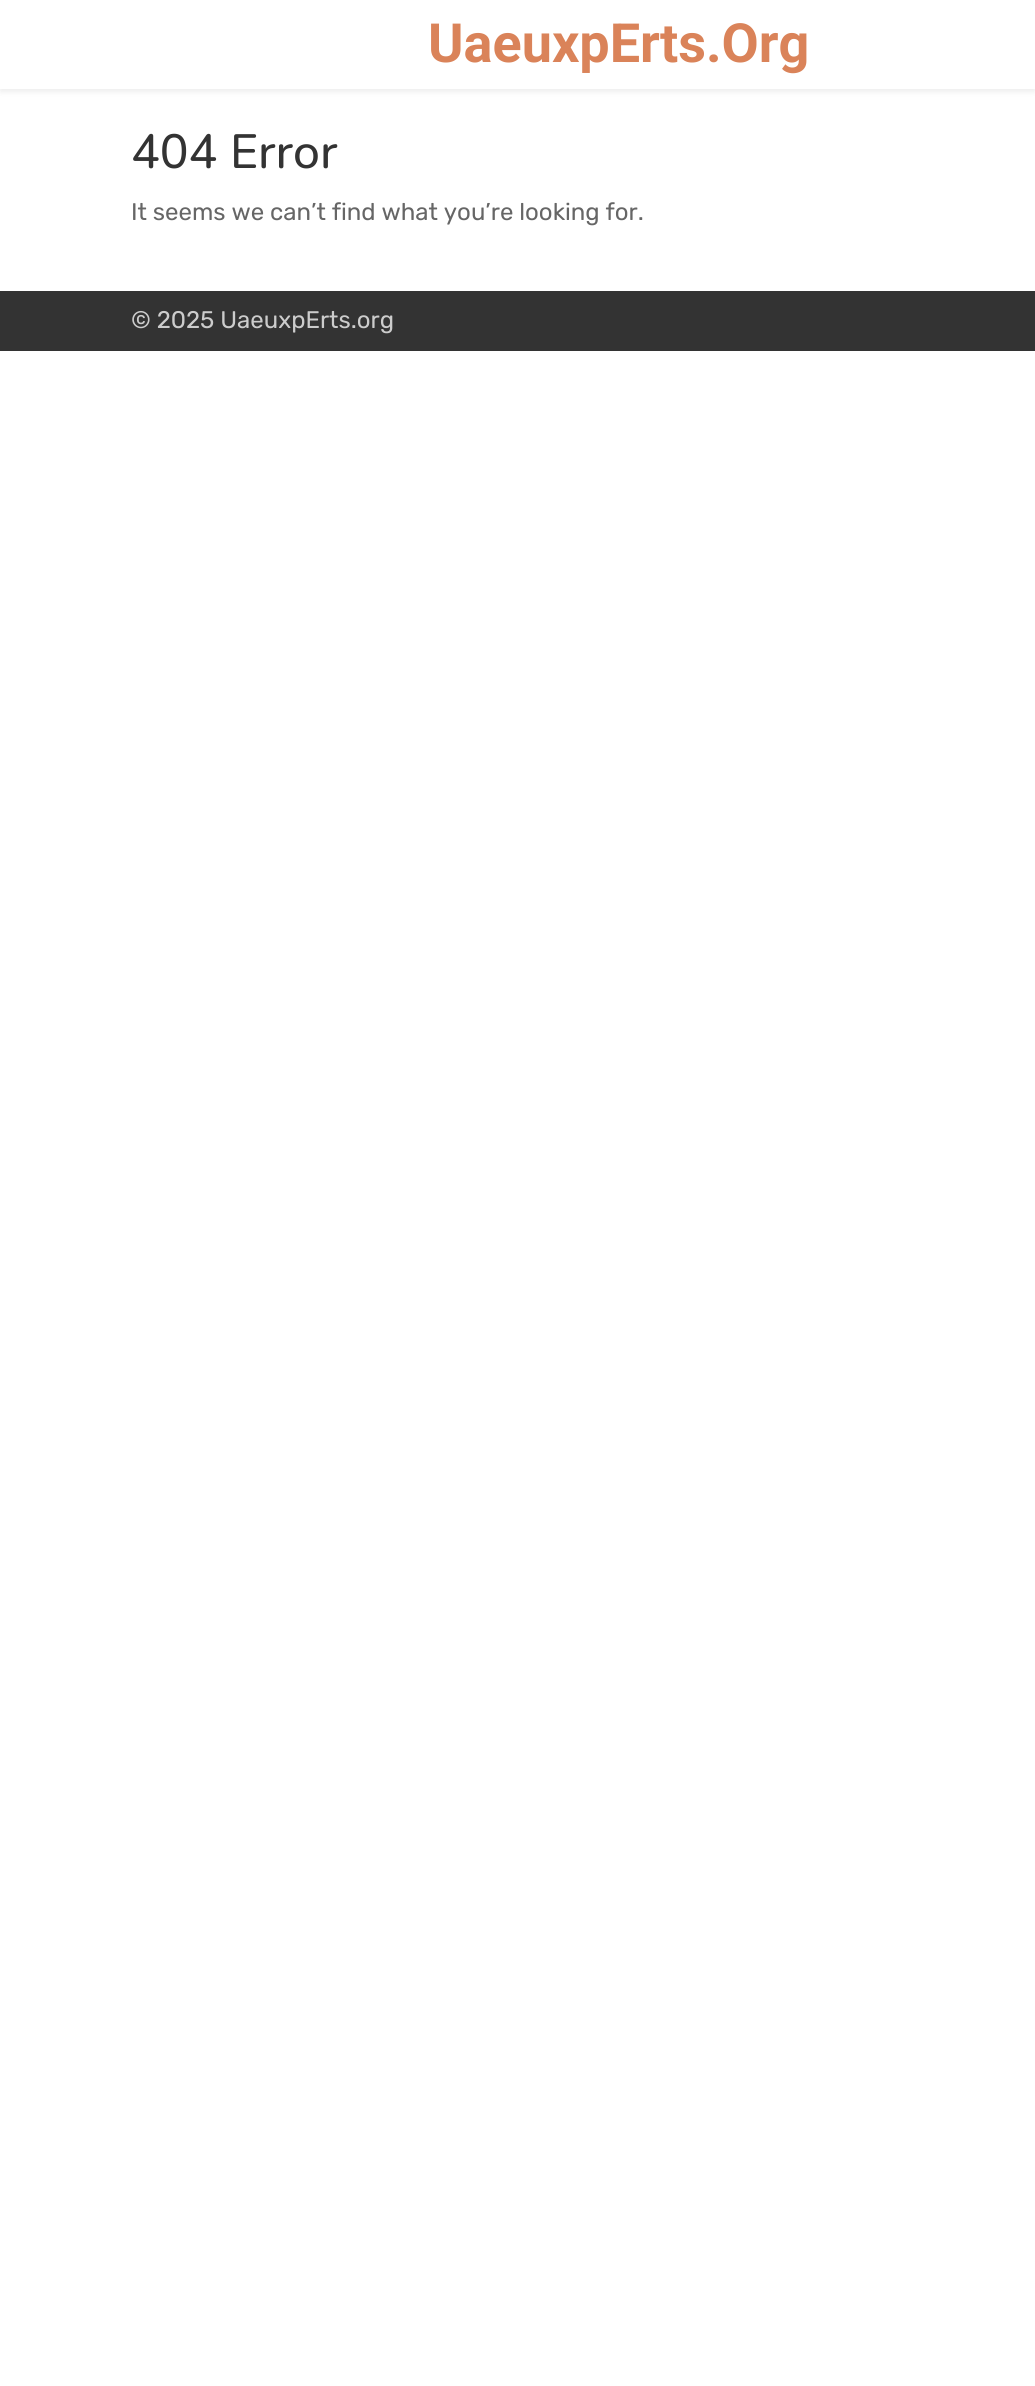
#include <cairo.h>
#include <math.h>
#include <stddef.h>

static cairo_t *ctx;

static void use_color(int r, int g, int b) {
    cairo_set_source_rgb(ctx, r / 255.0, g / 255.0, b / 255.0);
}

static void round_rect(double x, double y, double w, double h, double r) {
    cairo_new_sub_path(ctx);
    cairo_arc(ctx, x + w - r, y + h - r, r, 0, M_PI / 2);
    cairo_arc(ctx, x + r, y + h - r, r, M_PI / 2, M_PI);
    cairo_arc(ctx, x + r, y + r, r, M_PI, 1.5 * M_PI);
    cairo_arc(ctx, x + w - r, y + r, r, 1.5 * M_PI, 2 * M_PI);
    cairo_close_path(ctx);
}

static void shadow(double x, double y, double w, double h, double r, double blur, double alpha) {
    cairo_push_group_with_content(ctx, CAIRO_CONTENT_ALPHA);
    cairo_set_operator(ctx, CAIRO_OPERATOR_SOURCE);
    for (int i = 15; i >= -15 && fmin(w, h) + blur * i / 3 > 0; i -= 2) {
        double e = blur * i / 6;
        cairo_set_source_rgba(ctx, 0, 0, 0, alpha * erfc((i - 1) / 8.5) / 2);
        round_rect(x - e, y - e, w + 2 * e, h + 2 * e, fmax(0, fmin(r + e + blur * .6, fmin(w, h) / 2 + e)));
        cairo_fill(ctx);
    }
    cairo_pattern_t *soft = cairo_pop_group(ctx);
    cairo_mask(ctx, soft);
    cairo_pattern_destroy(soft);
}

int main(void) {
    cairo_surface_t *surface = cairo_image_surface_create(CAIRO_FORMAT_RGB24, 1035, 2386);
    ctx = cairo_create(surface);
    cairo_font_options_t *options = cairo_font_options_create();
    cairo_font_options_set_hint_metrics(options, CAIRO_HINT_METRICS_OFF);
    cairo_font_options_set_hint_style(options, CAIRO_HINT_STYLE_NONE);
    cairo_set_font_options(ctx, options);
    cairo_set_miter_limit(ctx, 4);
    use_color(255, 255, 255);
    cairo_paint(ctx);
    use_color(0, 0, 0);
    shadow(0, 3, 1035, 89, 0, 3, 0.07);
    use_color(255, 255, 255);
    cairo_rectangle(ctx, 0, 0, 1035, 89);
    cairo_fill(ctx);
    cairo_select_font_face(ctx, "Roboto", CAIRO_FONT_SLANT_NORMAL, CAIRO_FONT_WEIGHT_BOLD);
    cairo_set_font_size(ctx, 54);
    use_color(218, 131, 89);
    cairo_move_to(ctx, 428, 62);
    cairo_show_text(ctx, "UaeuxpErts.Org");
    cairo_select_font_face(ctx, "Nunito Medium", CAIRO_FONT_SLANT_NORMAL, CAIRO_FONT_WEIGHT_NORMAL);
    cairo_set_font_size(ctx, 48);
    use_color(51, 51, 51);
    cairo_move_to(ctx, 131, 168);
    cairo_show_text(ctx, "404 Error");
    cairo_select_font_face(ctx, "Rubik", CAIRO_FONT_SLANT_NORMAL, CAIRO_FONT_WEIGHT_NORMAL);
    cairo_set_font_size(ctx, 24);
    use_color(102, 102, 102);
    cairo_move_to(ctx, 131, 220);
    cairo_show_text(ctx, "It seems we can’t find what you’re looking for.");
    use_color(51, 51, 51);
    cairo_rectangle(ctx, 0, 291, 1035, 60);
    cairo_fill(ctx);
    use_color(204, 204, 204);
    cairo_move_to(ctx, 131, 328);
    cairo_show_text(ctx, "© 2025 UaeuxpErts.org");
    cairo_surface_write_to_png(surface, "result.png");
    cairo_font_options_destroy(options);
    cairo_destroy(ctx);
    cairo_surface_destroy(surface);
    return 0;
}
